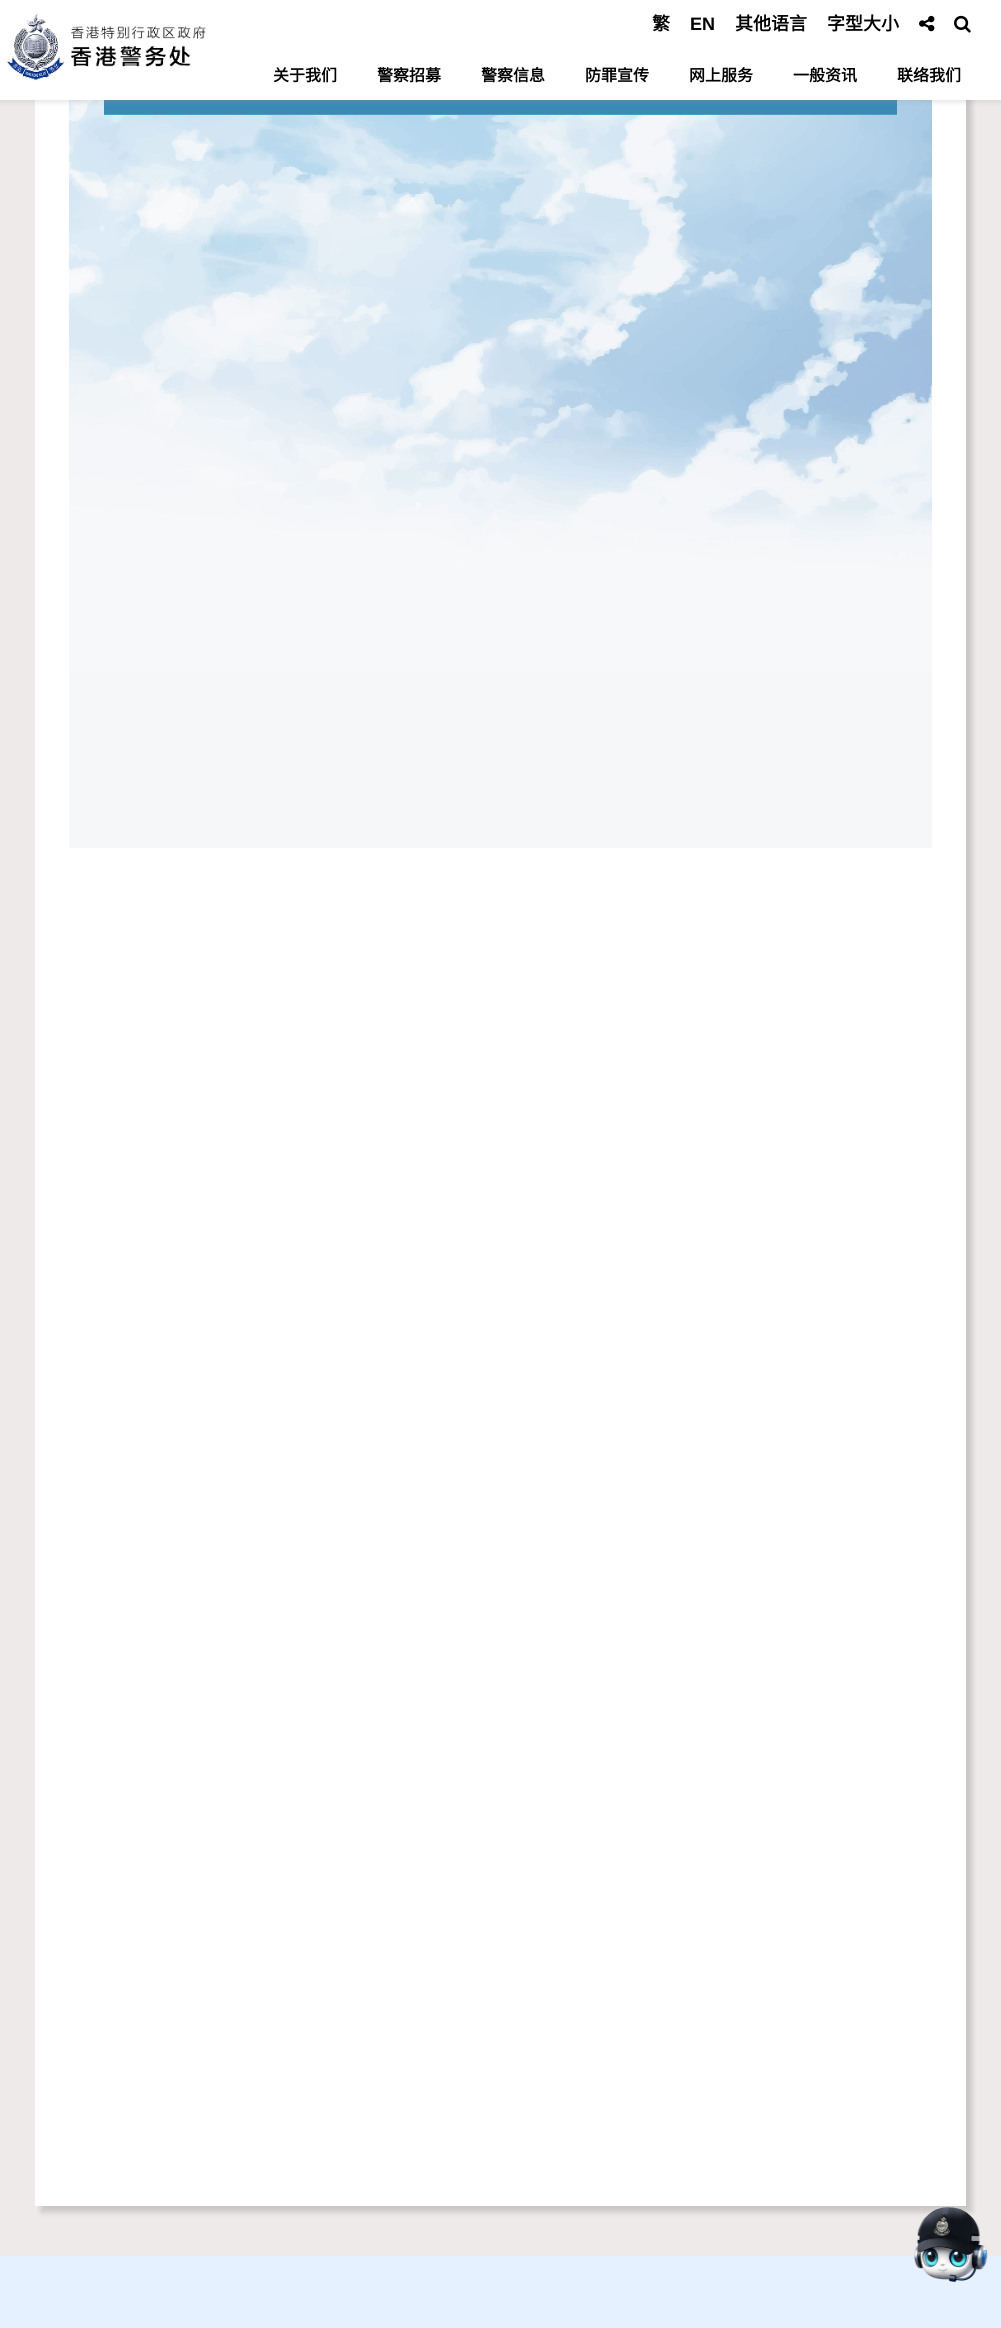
#include <cairo.h>
#include <math.h>
#include <stddef.h>

static cairo_t *ctx;

static void use_color(int r, int g, int b) {
    cairo_set_source_rgb(ctx, r / 255.0, g / 255.0, b / 255.0);
}

static void round_rect(double x, double y, double w, double h, double r) {
    cairo_new_sub_path(ctx);
    cairo_arc(ctx, x + w - r, y + h - r, r, 0, M_PI / 2);
    cairo_arc(ctx, x + r, y + h - r, r, M_PI / 2, M_PI);
    cairo_arc(ctx, x + r, y + r, r, M_PI, 1.5 * M_PI);
    cairo_arc(ctx, x + w - r, y + r, r, 1.5 * M_PI, 2 * M_PI);
    cairo_close_path(ctx);
}

static void shadow(double x, double y, double w, double h, double r, double blur, double alpha) {
    cairo_push_group_with_content(ctx, CAIRO_CONTENT_ALPHA);
    cairo_set_operator(ctx, CAIRO_OPERATOR_SOURCE);
    for (int i = 15; i >= -15 && fmin(w, h) + blur * i / 3 > 0; i -= 2) {
        double e = blur * i / 6;
        cairo_set_source_rgba(ctx, 0, 0, 0, alpha * erfc((i - 1) / 8.5) / 2);
        round_rect(x - e, y - e, w + 2 * e, h + 2 * e, fmax(0, fmin(r + e + blur * .6, fmin(w, h) / 2 + e)));
        cairo_fill(ctx);
    }
    cairo_pattern_t *soft = cairo_pop_group(ctx);
    cairo_mask(ctx, soft);
    cairo_pattern_destroy(soft);
}

static void picture(const char *path, double x, double y, double w, double h) {
    cairo_surface_t *image = cairo_image_surface_create_from_png(path);
    cairo_save(ctx);
    cairo_set_source_surface(ctx, image, x, y);
    cairo_rectangle(ctx, x, y, w, h);
    cairo_fill(ctx);
    cairo_restore(ctx);
    cairo_surface_destroy(image);
}

int main(void) {
    cairo_surface_t *surface = cairo_image_surface_create(CAIRO_FORMAT_RGB24, 1001, 2328);
    ctx = cairo_create(surface);
    cairo_font_options_t *options = cairo_font_options_create();
    cairo_font_options_set_hint_metrics(options, CAIRO_HINT_METRICS_OFF);
    cairo_font_options_set_hint_style(options, CAIRO_HINT_STYLE_NONE);
    cairo_set_font_options(ctx, options);
    cairo_set_miter_limit(ctx, 4);
    use_color(239, 234, 234);
    cairo_paint(ctx);
    use_color(0, 0, 0);
    shadow(41, -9, 931, 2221, 0, 3, 0.16);
    use_color(255, 255, 255);
    cairo_rectangle(ctx, 35, 100, 931, 2106);
    cairo_fill(ctx);
    picture("img1.png", 69, 100, 863, 748);
    use_color(58, 138, 181);
    cairo_rectangle(ctx, 104, 100, 793, 14);
    cairo_fill(ctx);
    use_color(69, 158, 206);
    cairo_rectangle(ctx, 104, 114, 793, 1);
    cairo_fill(ctx);
    use_color(150, 150, 150);
    shadow(0, 3, 1001, 100, 0, 2, 0.2);
    use_color(255, 255, 255);
    cairo_rectangle(ctx, 0, 0, 1001, 100);
    cairo_fill(ctx);
    cairo_select_font_face(ctx, "Noto Sans CJK SC", CAIRO_FONT_SLANT_NORMAL, CAIRO_FONT_WEIGHT_BOLD);
    cairo_set_font_size(ctx, 18);
    use_color(0, 0, 0);
    cairo_move_to(ctx, 652, 30);
    cairo_show_text(ctx, "繁");
    cairo_select_font_face(ctx, "Liberation Sans", CAIRO_FONT_SLANT_NORMAL, CAIRO_FONT_WEIGHT_BOLD);
    cairo_move_to(ctx, 690, 30);
    cairo_show_text(ctx, "EN");
    cairo_select_font_face(ctx, "Noto Sans CJK SC", CAIRO_FONT_SLANT_NORMAL, CAIRO_FONT_WEIGHT_BOLD);
    cairo_move_to(ctx, 735, 30);
    cairo_show_text(ctx, "其他语言");
    cairo_move_to(ctx, 827, 30);
    cairo_show_text(ctx, "字型大小");
    picture("img2.png", 919, 15, 16, 17);
    picture("img3.png", 954, 15, 17, 18);
    picture("img4.png", 6, 14, 200, 67);
    cairo_set_font_size(ctx, 16);
    cairo_move_to(ctx, 273, 81);
    cairo_show_text(ctx, "关于我们");
    cairo_move_to(ctx, 377, 81);
    cairo_show_text(ctx, "警察招募");
    cairo_move_to(ctx, 481, 81);
    cairo_show_text(ctx, "警察信息");
    cairo_move_to(ctx, 585, 81);
    cairo_show_text(ctx, "防罪宣传");
    cairo_move_to(ctx, 689, 81);
    cairo_show_text(ctx, "网上服务");
    cairo_move_to(ctx, 793, 81);
    cairo_show_text(ctx, "一般资讯");
    cairo_move_to(ctx, 897, 81);
    cairo_show_text(ctx, "联络我们");
    use_color(229, 241, 255);
    cairo_rectangle(ctx, 0, 2256, 1001, 72);
    cairo_fill(ctx);
    picture("img5.png", 914, 2207, 74, 75);
    cairo_surface_write_to_png(surface, "result.png");
    cairo_font_options_destroy(options);
    cairo_destroy(ctx);
    cairo_surface_destroy(surface);
    return 0;
}
